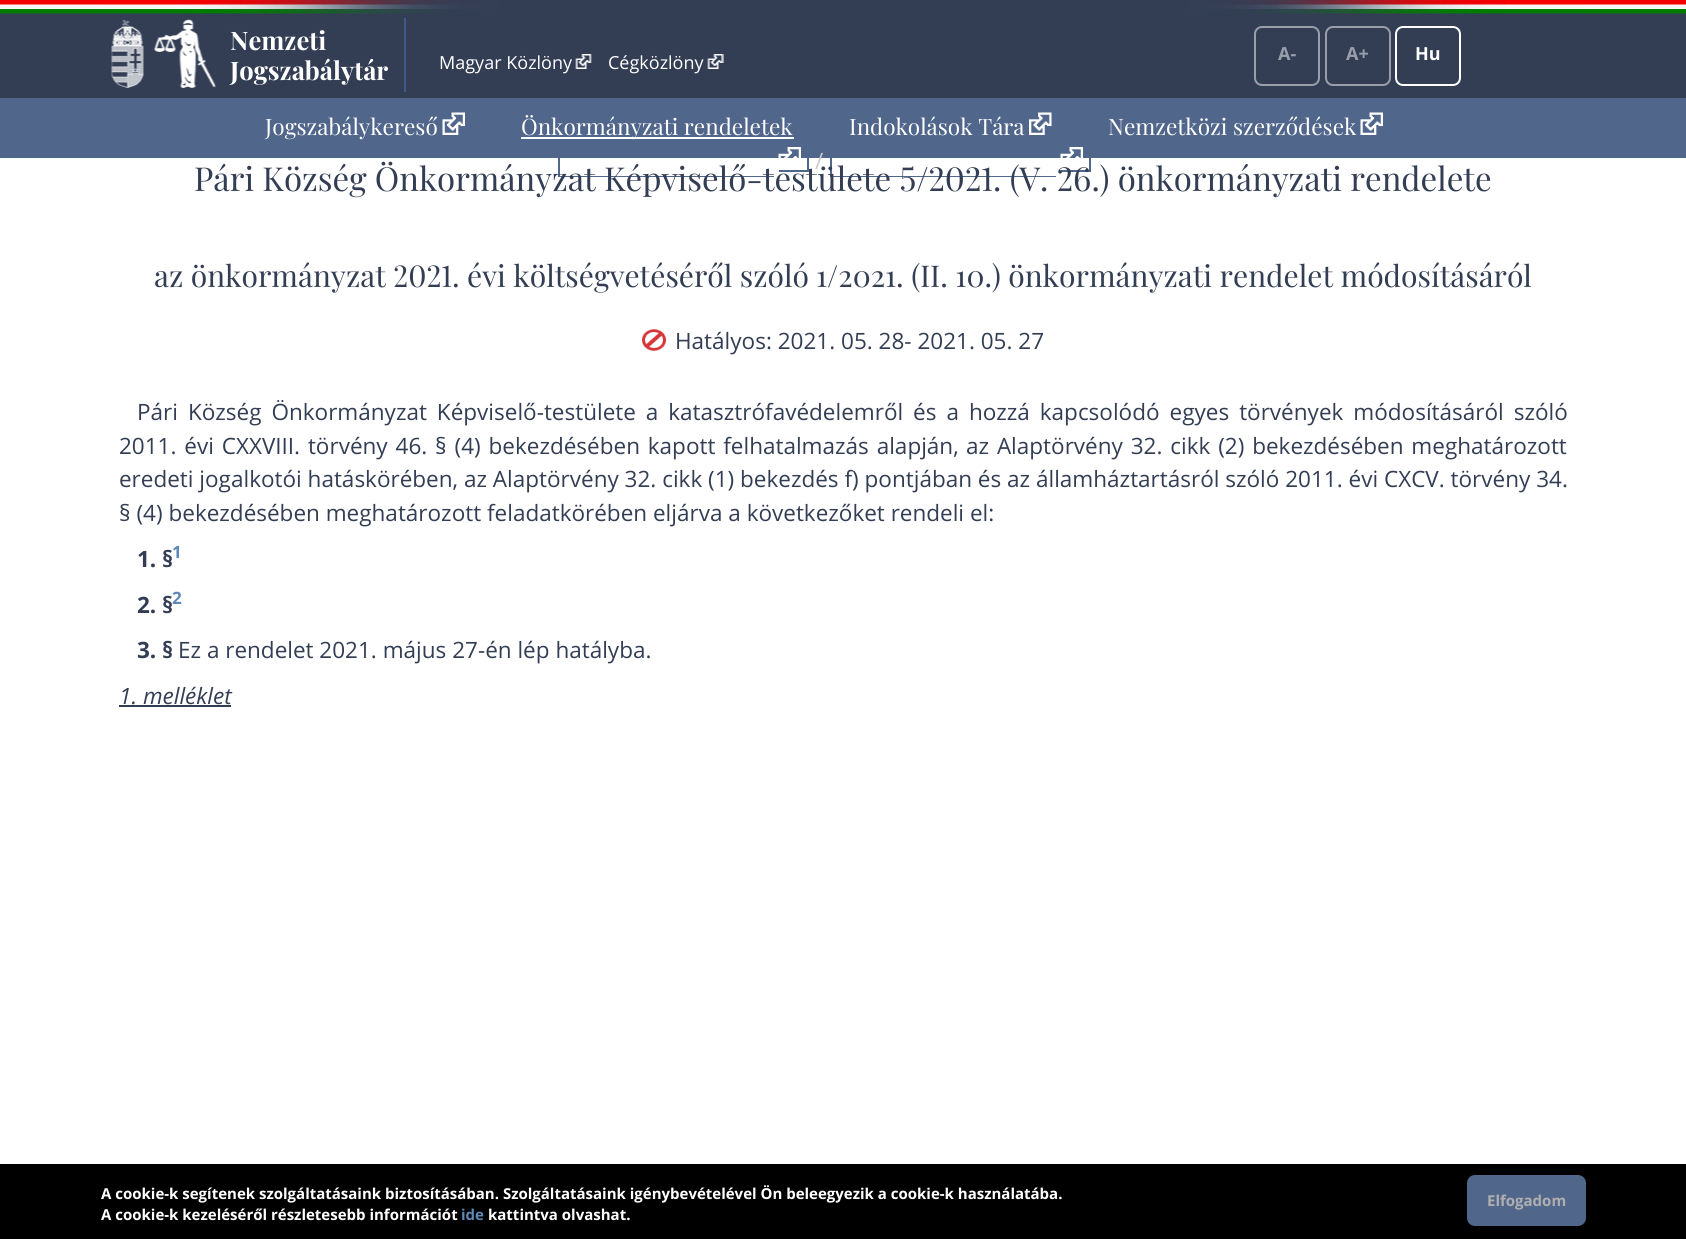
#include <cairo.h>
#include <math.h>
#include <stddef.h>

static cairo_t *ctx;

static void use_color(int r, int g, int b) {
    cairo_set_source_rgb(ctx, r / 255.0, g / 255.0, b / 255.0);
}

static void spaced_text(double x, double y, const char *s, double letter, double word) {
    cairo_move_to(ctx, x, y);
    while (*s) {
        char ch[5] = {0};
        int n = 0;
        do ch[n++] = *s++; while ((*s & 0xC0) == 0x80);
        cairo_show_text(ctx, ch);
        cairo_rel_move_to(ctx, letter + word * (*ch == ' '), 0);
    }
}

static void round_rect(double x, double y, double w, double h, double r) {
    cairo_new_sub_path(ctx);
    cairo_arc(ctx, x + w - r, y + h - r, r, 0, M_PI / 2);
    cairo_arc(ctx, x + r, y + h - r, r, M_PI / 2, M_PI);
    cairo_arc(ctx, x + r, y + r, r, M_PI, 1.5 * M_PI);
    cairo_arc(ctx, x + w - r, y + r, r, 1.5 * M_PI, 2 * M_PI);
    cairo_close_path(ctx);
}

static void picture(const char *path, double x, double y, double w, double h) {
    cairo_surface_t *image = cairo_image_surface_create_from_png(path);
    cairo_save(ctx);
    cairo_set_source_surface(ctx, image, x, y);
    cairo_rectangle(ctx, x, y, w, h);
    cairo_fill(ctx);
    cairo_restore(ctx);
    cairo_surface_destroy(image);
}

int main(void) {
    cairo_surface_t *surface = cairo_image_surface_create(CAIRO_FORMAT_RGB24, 1686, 1239);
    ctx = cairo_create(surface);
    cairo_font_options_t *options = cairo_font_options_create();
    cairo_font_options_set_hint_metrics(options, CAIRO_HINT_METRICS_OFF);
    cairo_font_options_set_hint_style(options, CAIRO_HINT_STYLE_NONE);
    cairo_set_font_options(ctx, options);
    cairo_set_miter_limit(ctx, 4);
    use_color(255, 255, 255);
    cairo_paint(ctx);
    use_color(51, 62, 85);
    cairo_rectangle(ctx, 0, 13, 1686, 85);
    cairo_fill(ctx);
    picture("img1.png", 0, 0, 1686, 14);
    cairo_rectangle(ctx, 101, 0, 1485, 14);
    cairo_fill(ctx);
    picture("img2.png", 101, 0, 1485, 14);
    picture("img3.png", 111, 19, 105, 69);
    use_color(61, 89, 136);
    cairo_rectangle(ctx, 404, 18, 2, 74);
    cairo_fill(ctx);
    cairo_select_font_face(ctx, "Playfair Display", CAIRO_FONT_SLANT_NORMAL, CAIRO_FONT_WEIGHT_BOLD);
    cairo_set_font_size(ctx, 25.5);
    use_color(255, 255, 255);
    cairo_move_to(ctx, 230, 50);
    cairo_show_text(ctx, "Nemzeti");
    cairo_move_to(ctx, 230, 80);
    cairo_show_text(ctx, "Jogszabálytár");
    cairo_select_font_face(ctx, "Open Sans", CAIRO_FONT_SLANT_NORMAL, CAIRO_FONT_WEIGHT_NORMAL);
    cairo_set_font_size(ctx, 18);
    cairo_move_to(ctx, 439, 69);
    cairo_show_text(ctx, "Magyar Közlöny");
    picture("img4.png", 575, 54, 17, 15);
    cairo_move_to(ctx, 608, 69);
    cairo_show_text(ctx, "Cégközlöny");
    picture("img5.png", 707, 54, 17, 15);
    round_rect(1255, 27, 64, 58, 7);
    use_color(153, 159, 170);
    cairo_stroke(ctx);
    cairo_select_font_face(ctx, "Open Sans", CAIRO_FONT_SLANT_NORMAL, CAIRO_FONT_WEIGHT_BOLD);
    cairo_move_to(ctx, 1278, 60);
    cairo_show_text(ctx, "A-");
    round_rect(1326, 27, 64, 58, 7);
    cairo_stroke(ctx);
    cairo_move_to(ctx, 1346, 60);
    cairo_show_text(ctx, "A+");
    round_rect(1396, 27, 64, 58, 7);
    use_color(255, 255, 255);
    cairo_stroke(ctx);
    cairo_move_to(ctx, 1415, 60);
    cairo_show_text(ctx, "Hu");
    use_color(81, 102, 139);
    cairo_rectangle(ctx, 0, 98, 1686, 60);
    cairo_fill(ctx);
    cairo_select_font_face(ctx, "Playfair Display", CAIRO_FONT_SLANT_NORMAL, CAIRO_FONT_WEIGHT_NORMAL);
    cairo_set_font_size(ctx, 22.5);
    use_color(255, 255, 255);
    cairo_move_to(ctx, 265, 135);
    cairo_show_text(ctx, "Jogszabálykereső");
    picture("img6.png", 442, 112, 23, 23);
    cairo_rectangle(ctx, 521, 137, 273, 2);
    cairo_fill(ctx);
    cairo_move_to(ctx, 521, 135);
    cairo_show_text(ctx, "Önkormányzati rendeletek");
    cairo_move_to(ctx, 849, 135);
    cairo_show_text(ctx, "Indokolások Tára");
    picture("img7.png", 1029, 112, 23, 23);
    cairo_move_to(ctx, 1108, 135);
    cairo_show_text(ctx, "Nemzetközi szerződések");
    picture("img8.png", 1360, 112, 23, 23);
    use_color(81, 102, 139);
    cairo_rectangle(ctx, 558, 176, 216, 1);
    cairo_fill(ctx);
    cairo_rectangle(ctx, 558, 158, 2, 19);
    cairo_fill(ctx);
    cairo_rectangle(ctx, 807, 158, 2, 13);
    cairo_fill(ctx);
    cairo_rectangle(ctx, 779, 170, 30, 2);
    cairo_fill(ctx);
    picture("img9.png", 778, 147, 23, 11);
    cairo_select_font_face(ctx, "Open Sans", CAIRO_FONT_SLANT_NORMAL, CAIRO_FONT_WEIGHT_NORMAL);
    use_color(204, 204, 204);
    cairo_move_to(ctx, 815, 169);
    cairo_show_text(ctx, "/");
    use_color(81, 102, 139);
    cairo_rectangle(ctx, 830, 176, 226, 1);
    cairo_fill(ctx);
    cairo_rectangle(ctx, 830, 158, 2, 19);
    cairo_fill(ctx);
    cairo_rectangle(ctx, 1089, 158, 2, 13);
    cairo_fill(ctx);
    cairo_rectangle(ctx, 1061, 170, 30, 2);
    cairo_fill(ctx);
    picture("img10.png", 1060, 147, 23, 11);
    cairo_select_font_face(ctx, "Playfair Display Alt", CAIRO_FONT_SLANT_NORMAL, CAIRO_FONT_WEIGHT_NORMAL);
    cairo_set_font_size(ctx, 33);
    use_color(51, 62, 85);
    cairo_move_to(ctx, 194, 191);
    cairo_show_text(ctx, "Pári Község Önkormányzat Képviselő-testülete 5/2021. (V. 26.) önkormányzati rendelete");
    cairo_set_font_size(ctx, 30);
    cairo_move_to(ctx, 154, 287);
    cairo_show_text(ctx, "az önkormányzat 2021. évi költségvetéséről szóló");
    cairo_select_font_face(ctx, "Playfair Display", CAIRO_FONT_SLANT_NORMAL, CAIRO_FONT_WEIGHT_NORMAL);
    cairo_move_to(ctx, 816, 287);
    cairo_show_text(ctx, "1/2021. (II. 10.) önkormányzati rendelet módosításáról");
    picture("img11.png", 642, 329, 24, 22);
    cairo_select_font_face(ctx, "Open Sans", CAIRO_FONT_SLANT_NORMAL, CAIRO_FONT_WEIGHT_NORMAL);
    cairo_set_font_size(ctx, 22.5);
    cairo_move_to(ctx, 675, 349);
    cairo_show_text(ctx, "Hatályos: 2021. 05. 28- 2021. 05. 27");
    spaced_text(137, 420, "Pári Község Önkormányzat Képviselő-testülete a katasztrófavédelemről és a hozzá kapcsolódó egyes törvények módosításáról szóló", 0, 4.1);
    spaced_text(119, 454, "2011. évi CXXVIII. törvény 46. § (4) bekezdésében kapott felhatalmazás alapján,", 0, 2);
    spaced_text(966, 454, "az Alaptörvény 32. cikk (2) bekezdésében meghatározott", 0, 2);
    cairo_move_to(ctx, 119, 487);
    cairo_show_text(ctx, "eredeti jogalkotói hatáskörében, az Alaptörvény 32. cikk (1) bekezdés f) pontjában és az államháztartásról szóló 2011. évi CXCV. törvény 34.");
    cairo_move_to(ctx, 119, 521);
    cairo_show_text(ctx, "§ (4) bekezdésében meghatározott feladatkörében eljárva a következőket rendeli el:");
    cairo_select_font_face(ctx, "Open Sans", CAIRO_FONT_SLANT_NORMAL, CAIRO_FONT_WEIGHT_BOLD);
    cairo_move_to(ctx, 137, 567);
    cairo_show_text(ctx, "1. §");
    cairo_set_font_size(ctx, 17);
    use_color(93, 137, 184);
    cairo_move_to(ctx, 172, 558);
    cairo_show_text(ctx, "1");
    cairo_set_font_size(ctx, 22.5);
    use_color(51, 62, 85);
    cairo_move_to(ctx, 137, 613);
    cairo_show_text(ctx, "2. §");
    cairo_set_font_size(ctx, 17);
    use_color(93, 137, 184);
    cairo_move_to(ctx, 172, 604);
    cairo_show_text(ctx, "2");
    cairo_set_font_size(ctx, 22.5);
    use_color(51, 62, 85);
    cairo_move_to(ctx, 137, 658);
    cairo_show_text(ctx, "3. §");
    cairo_select_font_face(ctx, "Open Sans", CAIRO_FONT_SLANT_NORMAL, CAIRO_FONT_WEIGHT_NORMAL);
    cairo_move_to(ctx, 178, 658);
    cairo_show_text(ctx, "Ez a rendelet 2021. május 27-én lép hatályba.");
    cairo_select_font_face(ctx, "Open Sans", CAIRO_FONT_SLANT_ITALIC, CAIRO_FONT_WEIGHT_NORMAL);
    cairo_move_to(ctx, 119, 704);
    cairo_show_text(ctx, "1. melléklet");
    cairo_rectangle(ctx, 119, 705, 112, 2);
    cairo_fill(ctx);
    use_color(0, 0, 0);
    cairo_rectangle(ctx, 0, 1164, 1686, 75);
    cairo_fill(ctx);
    cairo_select_font_face(ctx, "Open Sans", CAIRO_FONT_SLANT_NORMAL, CAIRO_FONT_WEIGHT_BOLD);
    cairo_set_font_size(ctx, 15);
    use_color(255, 255, 255);
    cairo_move_to(ctx, 101, 1199);
    cairo_show_text(ctx, "A cookie-k segítenek szolgáltatásaink biztosításában. Szolgáltatásaink igénybevételével Ön beleegyezik a cookie-k használatába.");
    cairo_move_to(ctx, 101, 1220);
    cairo_show_text(ctx, "A cookie-k kezeléséről részletesebb információt");
    use_color(93, 137, 184);
    cairo_move_to(ctx, 461, 1220);
    cairo_show_text(ctx, "ide");
    use_color(255, 255, 255);
    cairo_move_to(ctx, 488, 1220);
    cairo_show_text(ctx, "kattintva olvashat.");
    use_color(81, 102, 139);
    round_rect(1467, 1175, 119, 51, 8);
    cairo_fill(ctx);
    use_color(175, 175, 175);
    cairo_move_to(ctx, 1487, 1206);
    cairo_show_text(ctx, "Elfogadom");
    cairo_surface_write_to_png(surface, "result.png");
    cairo_font_options_destroy(options);
    cairo_destroy(ctx);
    cairo_surface_destroy(surface);
    return 0;
}
